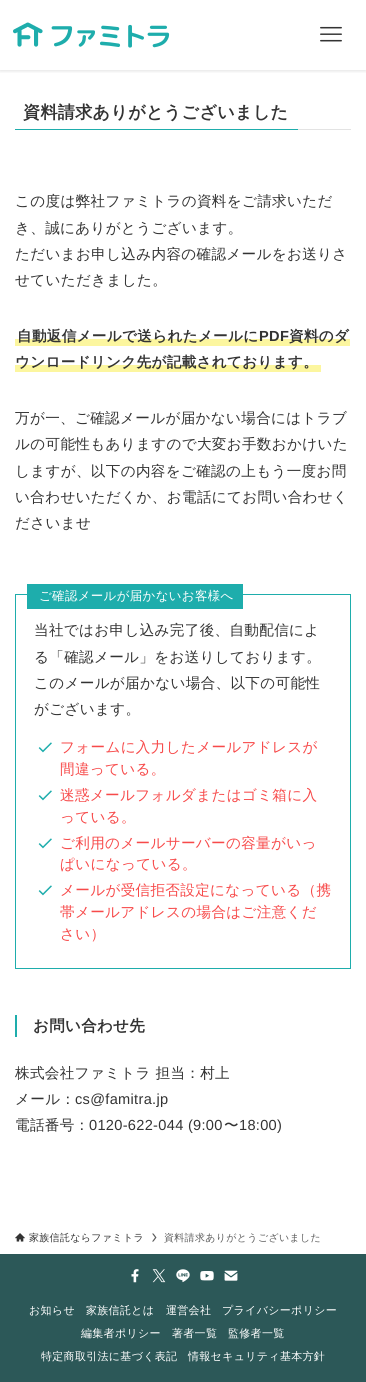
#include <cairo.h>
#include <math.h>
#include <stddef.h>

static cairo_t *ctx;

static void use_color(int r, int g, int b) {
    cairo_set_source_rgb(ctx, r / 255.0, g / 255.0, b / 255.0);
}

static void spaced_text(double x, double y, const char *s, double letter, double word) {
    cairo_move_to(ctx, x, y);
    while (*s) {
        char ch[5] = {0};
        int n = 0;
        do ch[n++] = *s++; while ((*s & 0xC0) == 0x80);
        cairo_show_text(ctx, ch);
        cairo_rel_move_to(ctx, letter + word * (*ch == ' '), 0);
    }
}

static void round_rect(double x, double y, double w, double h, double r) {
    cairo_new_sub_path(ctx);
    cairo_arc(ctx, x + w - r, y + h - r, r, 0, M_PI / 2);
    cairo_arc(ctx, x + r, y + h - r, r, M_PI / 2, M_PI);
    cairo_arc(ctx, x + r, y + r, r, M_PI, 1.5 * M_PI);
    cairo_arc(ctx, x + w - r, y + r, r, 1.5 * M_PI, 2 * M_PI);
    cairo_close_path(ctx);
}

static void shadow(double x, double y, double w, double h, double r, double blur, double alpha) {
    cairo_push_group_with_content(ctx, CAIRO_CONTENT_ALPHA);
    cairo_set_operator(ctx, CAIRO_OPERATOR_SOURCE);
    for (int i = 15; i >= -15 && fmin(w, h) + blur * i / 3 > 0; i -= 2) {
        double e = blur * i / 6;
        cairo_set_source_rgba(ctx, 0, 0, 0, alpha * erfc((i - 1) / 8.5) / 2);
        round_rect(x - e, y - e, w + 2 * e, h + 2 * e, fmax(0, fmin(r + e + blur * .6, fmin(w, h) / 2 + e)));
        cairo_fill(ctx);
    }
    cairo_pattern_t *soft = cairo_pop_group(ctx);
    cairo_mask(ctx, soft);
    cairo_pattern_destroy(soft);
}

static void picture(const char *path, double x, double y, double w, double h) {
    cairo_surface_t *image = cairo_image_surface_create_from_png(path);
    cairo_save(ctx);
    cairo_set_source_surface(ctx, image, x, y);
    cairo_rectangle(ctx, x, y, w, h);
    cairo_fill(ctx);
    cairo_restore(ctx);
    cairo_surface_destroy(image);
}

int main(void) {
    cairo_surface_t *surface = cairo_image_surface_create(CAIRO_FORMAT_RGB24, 366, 1382);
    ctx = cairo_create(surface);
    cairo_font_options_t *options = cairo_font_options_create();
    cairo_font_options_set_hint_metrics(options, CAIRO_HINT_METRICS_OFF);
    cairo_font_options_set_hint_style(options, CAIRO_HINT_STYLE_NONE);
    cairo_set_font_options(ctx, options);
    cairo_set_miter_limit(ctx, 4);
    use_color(255, 255, 255);
    cairo_paint(ctx);
    cairo_save(ctx);
    cairo_rectangle(ctx, 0, 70, 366, 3);
    cairo_clip(ctx);
    use_color(0, 0, 0);
    shadow(0, 1, 366, 70, 0, 2, 0.12);
    cairo_restore(ctx);
    picture("img1.png", 13, 22, 157, 26);
    picture("img2.png", 320, 26, 22, 16);
    use_color(227, 227, 227);
    cairo_rectangle(ctx, 298, 129, 53, 1);
    cairo_fill(ctx);
    use_color(30, 173, 172);
    cairo_rectangle(ctx, 15, 129, 283, 1);
    cairo_fill(ctx);
    cairo_select_font_face(ctx, "WenQuanYi Zen Hei", CAIRO_FONT_SLANT_NORMAL, CAIRO_FONT_WEIGHT_BOLD);
    cairo_set_font_size(ctx, 17.1);
    use_color(51, 51, 51);
    spaced_text(23, 118, "資料請求ありがとうございました", 0.3, 0);
    cairo_select_font_face(ctx, "WenQuanYi Zen Hei Medium", CAIRO_FONT_SLANT_NORMAL, CAIRO_FONT_WEIGHT_NORMAL);
    cairo_set_font_size(ctx, 14.6);
    spaced_text(15, 206, "この度は弊社ファミトラの資料をご請求いただ", 0.3, 0);
    spaced_text(15, 233, "き、誠にありがとうございます。", 0.3, 0);
    spaced_text(15, 259, "ただいまお申し込み内容の確認メールをお送りさ", 0.3, 0);
    spaced_text(15, 285, "せていただきました。", 0.3, 0);
    use_color(252, 246, 159);
    cairo_rectangle(ctx, 15, 339, 335, 7);
    cairo_fill(ctx);
    cairo_select_font_face(ctx, "WenQuanYi Zen Hei", CAIRO_FONT_SLANT_NORMAL, CAIRO_FONT_WEIGHT_BOLD);
    use_color(51, 51, 51);
    spaced_text(17, 341, "自動返信メールで送られたメールに", 0.3, 0);
    cairo_select_font_face(ctx, "Liberation Sans", CAIRO_FONT_SLANT_NORMAL, CAIRO_FONT_WEIGHT_BOLD);
    spaced_text(259, 341, "PDF", 0.3, 0);
    cairo_select_font_face(ctx, "WenQuanYi Zen Hei", CAIRO_FONT_SLANT_NORMAL, CAIRO_FONT_WEIGHT_BOLD);
    spaced_text(289, 341, "資料のダ", 0.3, 0);
    use_color(252, 246, 159);
    cairo_rectangle(ctx, 15, 365, 306, 7);
    cairo_fill(ctx);
    use_color(51, 51, 51);
    spaced_text(15, 367, "ウンロードリンク先が記載されております。", 0.3, 0);
    cairo_select_font_face(ctx, "WenQuanYi Zen Hei Medium", CAIRO_FONT_SLANT_NORMAL, CAIRO_FONT_WEIGHT_NORMAL);
    spaced_text(15, 423, "万が一、ご確認メールが届かない場合にはトラブ", 0.3, 0);
    spaced_text(15, 449, "ルの可能性もありますので大変お手数おかけいた", 0.3, 0);
    spaced_text(15, 476, "しますが、以下の内容をご確認の上もう一度お問", 0.3, 0);
    spaced_text(15, 502, "い合わせいただくか、お電話にてお問い合わせく", 0.3, 0);
    spaced_text(15, 528, "ださいませ", 0.3, 0);
    cairo_rectangle(ctx, 15.5, 594.5, 335, 374);
    use_color(30, 173, 172);
    cairo_set_line_width(ctx, 1);
    cairo_stroke(ctx);
    cairo_rectangle(ctx, 27, 584, 216, 25);
    cairo_fill(ctx);
    cairo_set_font_size(ctx, 12.5);
    use_color(255, 255, 255);
    spaced_text(39, 600, "ご確認メールが届かないお客様へ", 0.3, 0);
    cairo_set_font_size(ctx, 14.6);
    use_color(51, 51, 51);
    spaced_text(34, 635, "当社ではお申し込み完了後、自動配信によ", 0.3, 0);
    spaced_text(34, 662, "る「確認メール」をお送りしております。", 0.3, 0);
    spaced_text(34, 688, "このメールが届かない場合、以下の可能性", 0.3, 0);
    spaced_text(34, 714, "がございます。", 0.3, 0);
    picture("img3.png", 38, 742, 14, 11);
    use_color(247, 74, 74);
    spaced_text(60, 752, "フォームに入力したメールアドレスが", 0.3, 0);
    spaced_text(60, 774, "間違っている。", 0.3, 0);
    picture("img3.png", 38, 790, 14, 11);
    spaced_text(60, 800, "迷惑メールフォルダまたはゴミ箱に入", 0.3, 0);
    spaced_text(60, 822, "っている。", 0.3, 0);
    picture("img3.png", 38, 838, 14, 11);
    spaced_text(60, 848, "ご利用のメールサーバーの容量がいっ", 0.3, 0);
    spaced_text(60, 869, "ぱいになっている。", 0.3, 0);
    picture("img3.png", 38, 885, 14, 11);
    spaced_text(60, 895, "メールが受信拒否設定になっている（携", 0.3, 0);
    spaced_text(60, 917, "帯メールアドレスの場合はご注意くだ", 0.3, 0);
    spaced_text(60, 939, "さい）", 0.3, 0);
    use_color(30, 173, 172);
    cairo_rectangle(ctx, 15, 1015, 2, 22);
    cairo_fill(ctx);
    cairo_select_font_face(ctx, "WenQuanYi Zen Hei", CAIRO_FONT_SLANT_NORMAL, CAIRO_FONT_WEIGHT_BOLD);
    cairo_set_font_size(ctx, 15.5);
    use_color(51, 51, 51);
    spaced_text(33, 1031, "お問い合わせ先", 0.3, 0);
    cairo_select_font_face(ctx, "WenQuanYi Zen Hei Medium", CAIRO_FONT_SLANT_NORMAL, CAIRO_FONT_WEIGHT_NORMAL);
    cairo_set_font_size(ctx, 14.6);
    spaced_text(15, 1078, "株式会社ファミトラ 担当：村上", 0.3, 0);
    spaced_text(15, 1104, "メール：", 0.3, 0);
    cairo_select_font_face(ctx, "Liberation Sans", CAIRO_FONT_SLANT_NORMAL, CAIRO_FONT_WEIGHT_NORMAL);
    spaced_text(75, 1104, "cs@famitra.jp", 0.3, 0);
    cairo_select_font_face(ctx, "WenQuanYi Zen Hei Medium", CAIRO_FONT_SLANT_NORMAL, CAIRO_FONT_WEIGHT_NORMAL);
    spaced_text(15, 1130, "電話番号：", 0.3, 0);
    cairo_select_font_face(ctx, "Liberation Sans", CAIRO_FONT_SLANT_NORMAL, CAIRO_FONT_WEIGHT_NORMAL);
    spaced_text(89, 1130, "0120-622-044 (9:00", 0.3, 0);
    cairo_select_font_face(ctx, "WenQuanYi Zen Hei Medium", CAIRO_FONT_SLANT_NORMAL, CAIRO_FONT_WEIGHT_NORMAL);
    spaced_text(224, 1130, "〜", 0.3, 0);
    cairo_select_font_face(ctx, "Liberation Sans", CAIRO_FONT_SLANT_NORMAL, CAIRO_FONT_WEIGHT_NORMAL);
    spaced_text(239, 1130, "18:00)", 0.3, 0);
    picture("img4.png", 15, 1233, 10, 9);
    cairo_select_font_face(ctx, "WenQuanYi Zen Hei Medium", CAIRO_FONT_SLANT_NORMAL, CAIRO_FONT_WEIGHT_NORMAL);
    cairo_set_font_size(ctx, 10);
    spaced_text(29, 1241, "家族信託ならファミトラ", 0.3, 0);
    use_color(92, 92, 92);
    cairo_new_path(ctx);
    cairo_move_to(ctx, 153.5, 1233.5);
    cairo_line_to(ctx, 152, 1233.5);
    cairo_line_to(ctx, 155, 1237.5);
    cairo_line_to(ctx, 152, 1241.5);
    cairo_line_to(ctx, 153.5, 1241.5);
    cairo_line_to(ctx, 156.5, 1237.5);
    cairo_close_path(ctx);
    cairo_fill(ctx);
    spaced_text(164, 1241, "資料請求ありがとうございました", 0.3, 0);
    use_color(44, 88, 88);
    cairo_rectangle(ctx, 0, 1254, 366, 128);
    cairo_fill(ctx);
    picture("img5.png", 131, 1269, 8, 14);
    picture("img6.png", 152, 1269, 14, 14);
    picture("img7.png", 176, 1269, 14, 14);
    picture("img8.png", 200, 1271, 14, 10);
    picture("img9.png", 224, 1270, 14, 11);
    cairo_set_font_size(ctx, 11);
    use_color(255, 255, 255);
    spaced_text(29, 1314, "お知らせ", 0.3, 0);
    spaced_text(86, 1314, "家族信託とは", 0.3, 0);
    spaced_text(166, 1314, "運営会社", 0.3, 0);
    spaced_text(222, 1314, "プライバシーポリシー", 0.3, 0);
    spaced_text(81, 1337, "編集者ポリシー", 0.3, 0);
    spaced_text(172, 1337, "著者一覧", 0.3, 0);
    spaced_text(228, 1337, "監修者一覧", 0.3, 0);
    spaced_text(41, 1360, "特定商取引法に基づく表記", 0.3, 0);
    spaced_text(188, 1360, "情報セキュリティ基本方針", 0.3, 0);
    cairo_surface_write_to_png(surface, "result.png");
    cairo_font_options_destroy(options);
    cairo_destroy(ctx);
    cairo_surface_destroy(surface);
    return 0;
}
